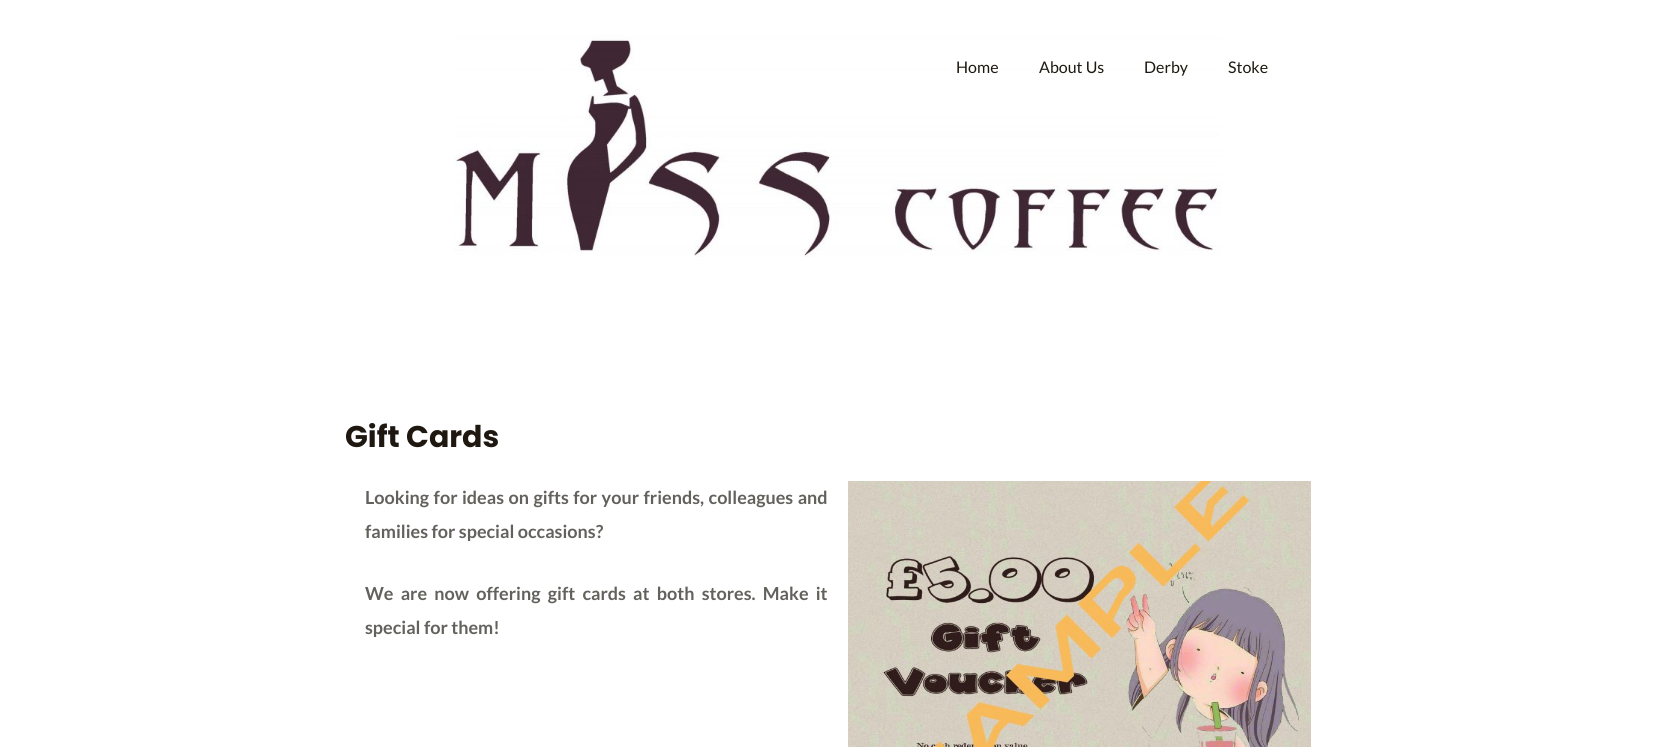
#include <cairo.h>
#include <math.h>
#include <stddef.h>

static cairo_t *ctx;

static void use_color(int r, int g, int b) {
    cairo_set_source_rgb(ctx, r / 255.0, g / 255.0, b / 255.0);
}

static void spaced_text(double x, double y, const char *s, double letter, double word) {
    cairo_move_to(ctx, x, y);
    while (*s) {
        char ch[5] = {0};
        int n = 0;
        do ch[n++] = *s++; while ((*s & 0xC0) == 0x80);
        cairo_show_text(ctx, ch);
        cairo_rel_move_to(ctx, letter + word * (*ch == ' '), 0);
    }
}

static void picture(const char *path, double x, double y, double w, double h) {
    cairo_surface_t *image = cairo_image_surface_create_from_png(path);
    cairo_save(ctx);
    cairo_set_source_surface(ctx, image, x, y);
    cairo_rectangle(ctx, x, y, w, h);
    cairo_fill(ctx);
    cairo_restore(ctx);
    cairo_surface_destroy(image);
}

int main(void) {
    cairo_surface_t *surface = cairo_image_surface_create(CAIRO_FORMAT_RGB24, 1676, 747);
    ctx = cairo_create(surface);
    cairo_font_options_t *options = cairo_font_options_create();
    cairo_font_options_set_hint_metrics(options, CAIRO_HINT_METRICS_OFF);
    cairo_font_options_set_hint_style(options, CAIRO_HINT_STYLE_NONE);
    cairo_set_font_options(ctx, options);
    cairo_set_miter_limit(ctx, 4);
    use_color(255, 255, 255);
    cairo_paint(ctx);
    picture("img1.png", 454, 35, 767, 222);
    cairo_select_font_face(ctx, "Lato", CAIRO_FONT_SLANT_NORMAL, CAIRO_FONT_WEIGHT_NORMAL);
    cairo_set_font_size(ctx, 16);
    use_color(30, 24, 16);
    cairo_move_to(ctx, 956, 73);
    cairo_show_text(ctx, "Home");
    cairo_move_to(ctx, 1039, 73);
    cairo_show_text(ctx, "About Us");
    cairo_move_to(ctx, 1144, 73);
    cairo_show_text(ctx, "Derby");
    cairo_move_to(ctx, 1228, 73);
    cairo_show_text(ctx, "Stoke");
    cairo_select_font_face(ctx, "Poppins", CAIRO_FONT_SLANT_NORMAL, CAIRO_FONT_WEIGHT_BOLD);
    cairo_set_font_size(ctx, 30);
    cairo_move_to(ctx, 345, 447);
    cairo_show_text(ctx, "Gift Cards");
    cairo_select_font_face(ctx, "Lato", CAIRO_FONT_SLANT_NORMAL, CAIRO_FONT_WEIGHT_BOLD);
    cairo_set_font_size(ctx, 18);
    use_color(98, 97, 92);
    spaced_text(365, 504, "Looking for ideas on gifts for your friends, colleagues and", 0, 1);
    cairo_move_to(ctx, 365, 538);
    cairo_show_text(ctx, "families for special occasions?");
    spaced_text(365, 600, "We are now offering gift cards at both stores. Make it", 0, 3.75);
    cairo_move_to(ctx, 365, 634);
    cairo_show_text(ctx, "special for them!");
    picture("img2.png", 848, 481, 463, 266);
    cairo_surface_write_to_png(surface, "result.png");
    cairo_font_options_destroy(options);
    cairo_destroy(ctx);
    cairo_surface_destroy(surface);
    return 0;
}
